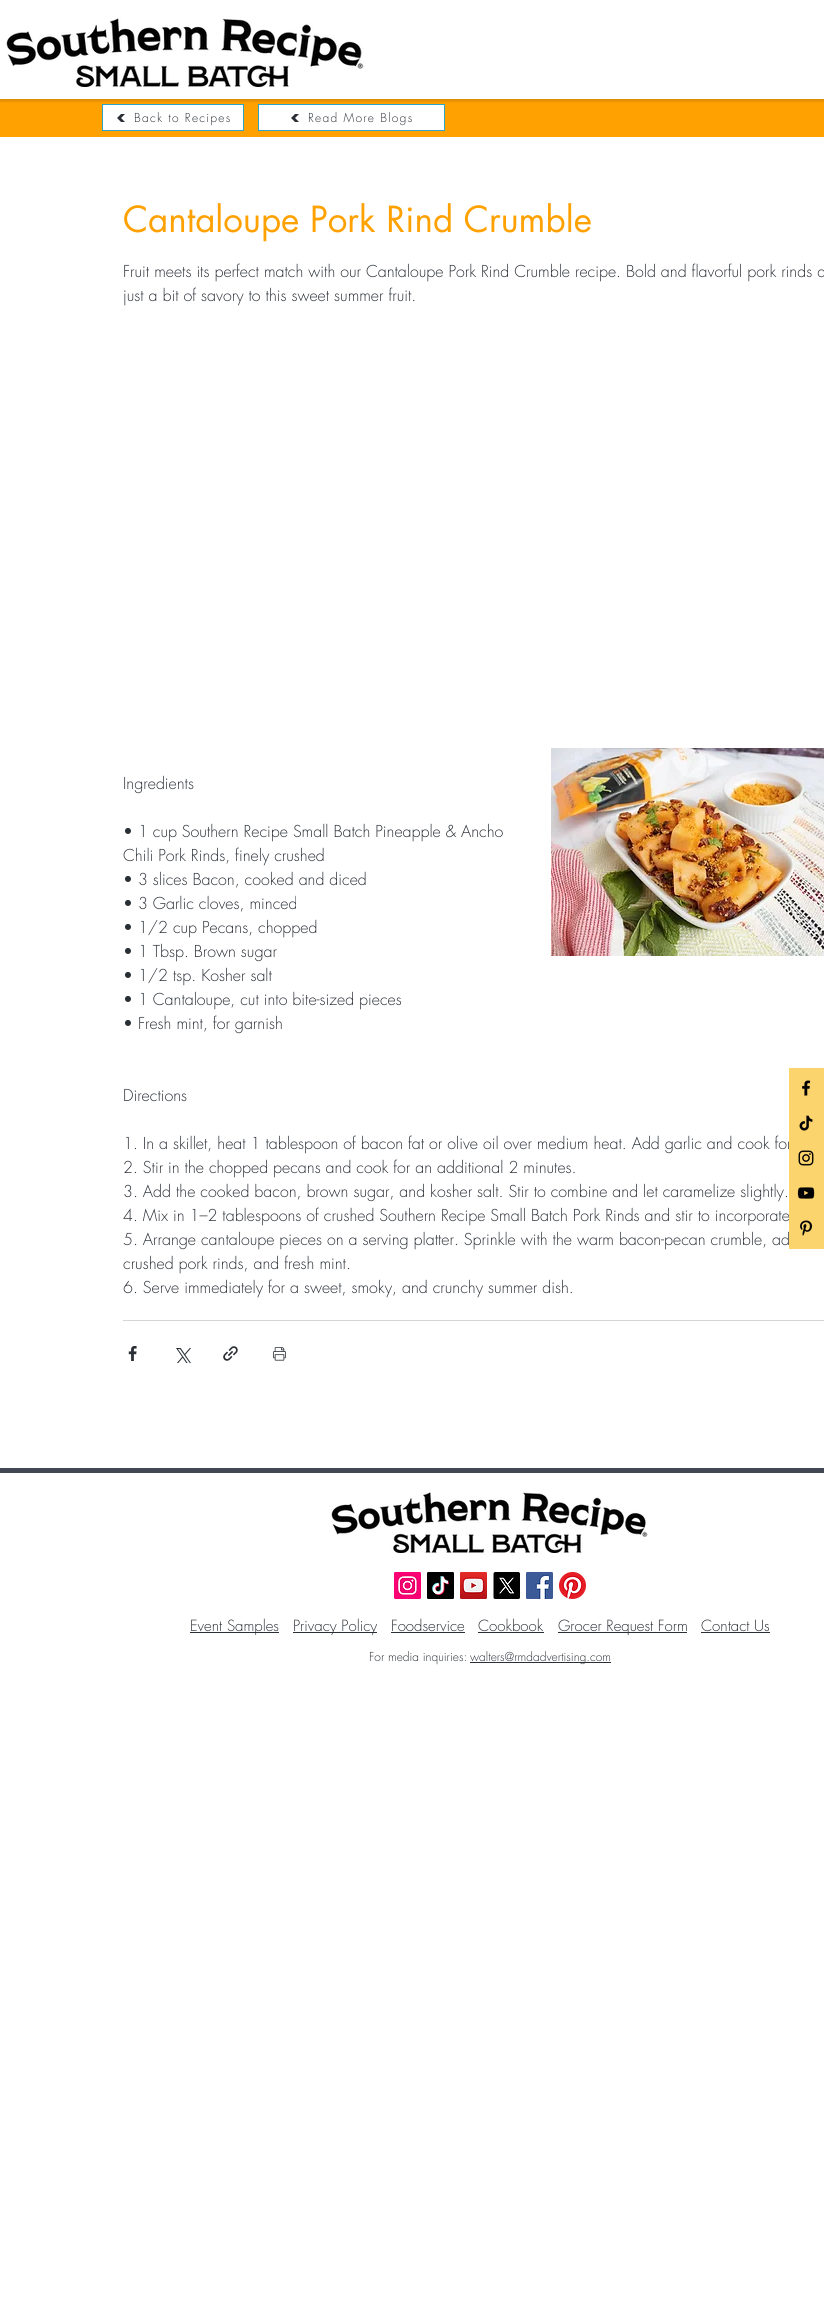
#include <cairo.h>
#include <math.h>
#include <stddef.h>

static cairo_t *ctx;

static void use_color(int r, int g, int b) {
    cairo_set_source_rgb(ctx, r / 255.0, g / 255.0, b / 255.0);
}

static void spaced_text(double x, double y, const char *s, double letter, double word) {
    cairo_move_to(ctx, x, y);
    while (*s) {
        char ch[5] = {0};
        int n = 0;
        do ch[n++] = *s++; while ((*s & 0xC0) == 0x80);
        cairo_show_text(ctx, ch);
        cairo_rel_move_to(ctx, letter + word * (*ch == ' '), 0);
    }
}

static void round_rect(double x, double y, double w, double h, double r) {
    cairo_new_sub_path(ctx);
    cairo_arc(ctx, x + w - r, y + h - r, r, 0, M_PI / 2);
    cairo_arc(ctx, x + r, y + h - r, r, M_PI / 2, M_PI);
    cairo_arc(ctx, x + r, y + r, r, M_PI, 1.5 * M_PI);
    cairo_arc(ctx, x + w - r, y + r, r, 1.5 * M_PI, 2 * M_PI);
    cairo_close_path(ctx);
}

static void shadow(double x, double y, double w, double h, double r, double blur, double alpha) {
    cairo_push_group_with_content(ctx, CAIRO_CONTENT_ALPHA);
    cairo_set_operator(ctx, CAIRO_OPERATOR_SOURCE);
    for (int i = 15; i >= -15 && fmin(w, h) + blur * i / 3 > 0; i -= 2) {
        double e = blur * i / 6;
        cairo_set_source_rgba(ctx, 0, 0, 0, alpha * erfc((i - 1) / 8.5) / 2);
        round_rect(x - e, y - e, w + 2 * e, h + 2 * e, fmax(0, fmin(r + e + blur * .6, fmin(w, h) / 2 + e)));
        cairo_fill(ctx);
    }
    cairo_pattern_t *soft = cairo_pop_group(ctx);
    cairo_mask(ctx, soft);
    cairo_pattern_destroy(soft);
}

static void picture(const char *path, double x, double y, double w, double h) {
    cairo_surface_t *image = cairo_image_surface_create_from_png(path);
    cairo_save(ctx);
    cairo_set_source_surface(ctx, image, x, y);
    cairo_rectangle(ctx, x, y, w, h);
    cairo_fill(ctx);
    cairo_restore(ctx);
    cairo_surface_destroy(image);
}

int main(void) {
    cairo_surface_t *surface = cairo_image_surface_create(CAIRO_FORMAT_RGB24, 824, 2316);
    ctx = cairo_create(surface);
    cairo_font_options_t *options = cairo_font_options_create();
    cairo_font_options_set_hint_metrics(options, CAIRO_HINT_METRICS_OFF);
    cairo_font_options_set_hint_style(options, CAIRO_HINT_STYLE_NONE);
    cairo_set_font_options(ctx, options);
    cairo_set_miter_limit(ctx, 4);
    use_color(255, 255, 255);
    cairo_paint(ctx);
    use_color(255, 161, 0);
    cairo_rectangle(ctx, 0, 99, 824, 38);
    cairo_fill(ctx);
    use_color(255, 255, 255);
    cairo_rectangle(ctx, 102.5, 104.5, 141, 26);
    cairo_fill_preserve(ctx);
    use_color(43, 164, 198);
    cairo_set_line_width(ctx, 1);
    cairo_stroke(ctx);
    use_color(255, 255, 255);
    cairo_rectangle(ctx, 258.5, 104.5, 186, 26);
    cairo_fill_preserve(ctx);
    use_color(43, 164, 198);
    cairo_stroke(ctx);
    cairo_save(ctx);
    cairo_rectangle(ctx, 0, 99, 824, 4);
    cairo_clip(ctx);
    use_color(0, 0, 0);
    shadow(0, 2, 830, 99, 0, 2, 0.17);
    cairo_restore(ctx);
    picture("img1.png", 6, 18, 358, 69);
    picture("img2.png", 117, 114, 8, 8);
    cairo_select_font_face(ctx, "futura Light", CAIRO_FONT_SLANT_NORMAL, CAIRO_FONT_WEIGHT_NORMAL);
    cairo_set_font_size(ctx, 12);
    use_color(42, 47, 54);
    spaced_text(134, 122, "Back to Recipes", 1.25, 0);
    picture("img2.png", 291, 114, 8, 8);
    spaced_text(308, 122, "Read More Blogs", 1.25, 0);
    cairo_select_font_face(ctx, "futura", CAIRO_FONT_SLANT_NORMAL, CAIRO_FONT_WEIGHT_NORMAL);
    cairo_set_font_size(ctx, 35);
    use_color(255, 161, 0);
    cairo_move_to(ctx, 123, 232);
    cairo_show_text(ctx, "Cantaloupe Pork Rind Crumble");
    cairo_select_font_face(ctx, "futura Light", CAIRO_FONT_SLANT_NORMAL, CAIRO_FONT_WEIGHT_NORMAL);
    cairo_set_font_size(ctx, 16);
    use_color(42, 47, 54);
    cairo_move_to(ctx, 123, 277);
    cairo_show_text(ctx, "Fruit meets its perfect match with our Cantaloupe Pork Rind Crumble recipe. Bold and flavorful pork rinds a");
    cairo_move_to(ctx, 123, 301);
    cairo_show_text(ctx, "just a bit of savory to this sweet summer fruit.");
    cairo_move_to(ctx, 123, 789);
    cairo_show_text(ctx, "Ingredients");
    picture("img3.png", 551, 748, 273, 208);
    cairo_move_to(ctx, 123, 837);
    cairo_show_text(ctx, "• 1 cup Southern Recipe Small Batch Pineapple & Ancho");
    cairo_move_to(ctx, 123, 861);
    cairo_show_text(ctx, "Chili Pork Rinds, finely crushed");
    cairo_move_to(ctx, 123, 885);
    cairo_show_text(ctx, "• 3 slices Bacon, cooked and diced");
    cairo_move_to(ctx, 123, 909);
    cairo_show_text(ctx, "• 3 Garlic cloves, minced");
    cairo_move_to(ctx, 123, 933);
    cairo_show_text(ctx, "• 1/2 cup Pecans, chopped");
    cairo_move_to(ctx, 123, 957);
    cairo_show_text(ctx, "• 1 Tbsp. Brown sugar");
    cairo_move_to(ctx, 123, 981);
    cairo_show_text(ctx, "• 1/2 tsp. Kosher salt");
    cairo_move_to(ctx, 123, 1005);
    cairo_show_text(ctx, "• 1 Cantaloupe, cut into bite-sized pieces");
    cairo_move_to(ctx, 123, 1029);
    cairo_show_text(ctx, "• Fresh mint, for garnish");
    cairo_move_to(ctx, 123, 1101);
    cairo_show_text(ctx, "Directions");
    cairo_move_to(ctx, 123, 1149);
    cairo_show_text(ctx, "1. In a skillet, heat 1 tablespoon of bacon fat or olive oil over medium heat. Add garlic and cook for");
    cairo_move_to(ctx, 123, 1173);
    cairo_show_text(ctx, "2. Stir in the chopped pecans and cook for an additional 2 minutes.");
    cairo_move_to(ctx, 123, 1197);
    cairo_show_text(ctx, "3. Add the cooked bacon, brown sugar, and kosher salt. Stir to combine and let caramelize slightly.");
    cairo_move_to(ctx, 123, 1221);
    cairo_show_text(ctx, "4. Mix in 1–2 tablespoons of crushed Southern Recipe Small Batch Pork Rinds and stir to incorporate");
    cairo_move_to(ctx, 123, 1245);
    cairo_show_text(ctx, "5. Arrange cantaloupe pieces on a serving platter. Sprinkle with the warm bacon-pecan crumble, ad");
    cairo_move_to(ctx, 123, 1269);
    cairo_show_text(ctx, "crushed pork rinds, and fresh mint.");
    cairo_move_to(ctx, 123, 1293);
    cairo_show_text(ctx, "6. Serve immediately for a sweet, smoky, and crunchy summer dish.");
    use_color(212, 213, 215);
    cairo_rectangle(ctx, 123, 1320, 701, 1);
    cairo_fill(ctx);
    picture("img4.png", 128, 1346, 9, 15);
    picture("img5.png", 176, 1348, 15, 15);
    picture("img6.png", 223, 1346, 15, 15);
    picture("img7.png", 273, 1347, 13, 14);
    use_color(252, 212, 109);
    cairo_rectangle(ctx, 789, 1068, 35, 181);
    cairo_fill(ctx);
    picture("img8.png", 802, 1080, 9, 16);
    picture("img9.png", 799, 1115, 14, 16);
    picture("img10.png", 798, 1150, 16, 16);
    picture("img11.png", 797, 1187, 18, 12);
    picture("img12.png", 799, 1220, 14, 16);
    use_color(66, 71, 84);
    cairo_rectangle(ctx, 0, 1468, 824, 5);
    cairo_fill(ctx);
    picture("img13.png", 331, 1492, 317, 61);
    picture("img14.png", 394, 1572, 27, 27);
    picture("img15.png", 427, 1572, 27, 27);
    picture("img16.png", 460, 1572, 27, 27);
    picture("img17.png", 493, 1572, 27, 27);
    picture("img18.png", 526, 1572, 27, 27);
    picture("img19.png", 559, 1572, 27, 27);
    use_color(42, 47, 54);
    cairo_rectangle(ctx, 190, 1632, 89, 1);
    cairo_fill(ctx);
    cairo_set_font_size(ctx, 15);
    cairo_move_to(ctx, 190, 1631);
    cairo_show_text(ctx, "Event Samples");
    cairo_rectangle(ctx, 293, 1632, 84, 1);
    cairo_fill(ctx);
    cairo_move_to(ctx, 293, 1631);
    cairo_show_text(ctx, "Privacy Policy");
    cairo_move_to(ctx, 391, 1631);
    cairo_show_text(ctx, "Foodservice");
    cairo_rectangle(ctx, 391, 1632, 74, 1);
    cairo_fill(ctx);
    cairo_move_to(ctx, 478, 1631);
    cairo_show_text(ctx, "Cookbook");
    cairo_rectangle(ctx, 478, 1632, 66, 1);
    cairo_fill(ctx);
    cairo_rectangle(ctx, 558, 1632, 129, 1);
    cairo_fill(ctx);
    cairo_move_to(ctx, 558, 1631);
    cairo_show_text(ctx, "Grocer Request Form");
    cairo_move_to(ctx, 701, 1631);
    cairo_show_text(ctx, "Contact Us");
    cairo_rectangle(ctx, 701, 1632, 69, 1);
    cairo_fill(ctx);
    cairo_set_font_size(ctx, 12);
    cairo_move_to(ctx, 369, 1661);
    cairo_show_text(ctx, "For media inquiries:");
    cairo_rectangle(ctx, 470, 1662, 141, 1);
    cairo_fill(ctx);
    cairo_move_to(ctx, 470, 1661);
    cairo_show_text(ctx, "walters@rmdadvertising.com");
    cairo_surface_write_to_png(surface, "result.png");
    cairo_font_options_destroy(options);
    cairo_destroy(ctx);
    cairo_surface_destroy(surface);
    return 0;
}
